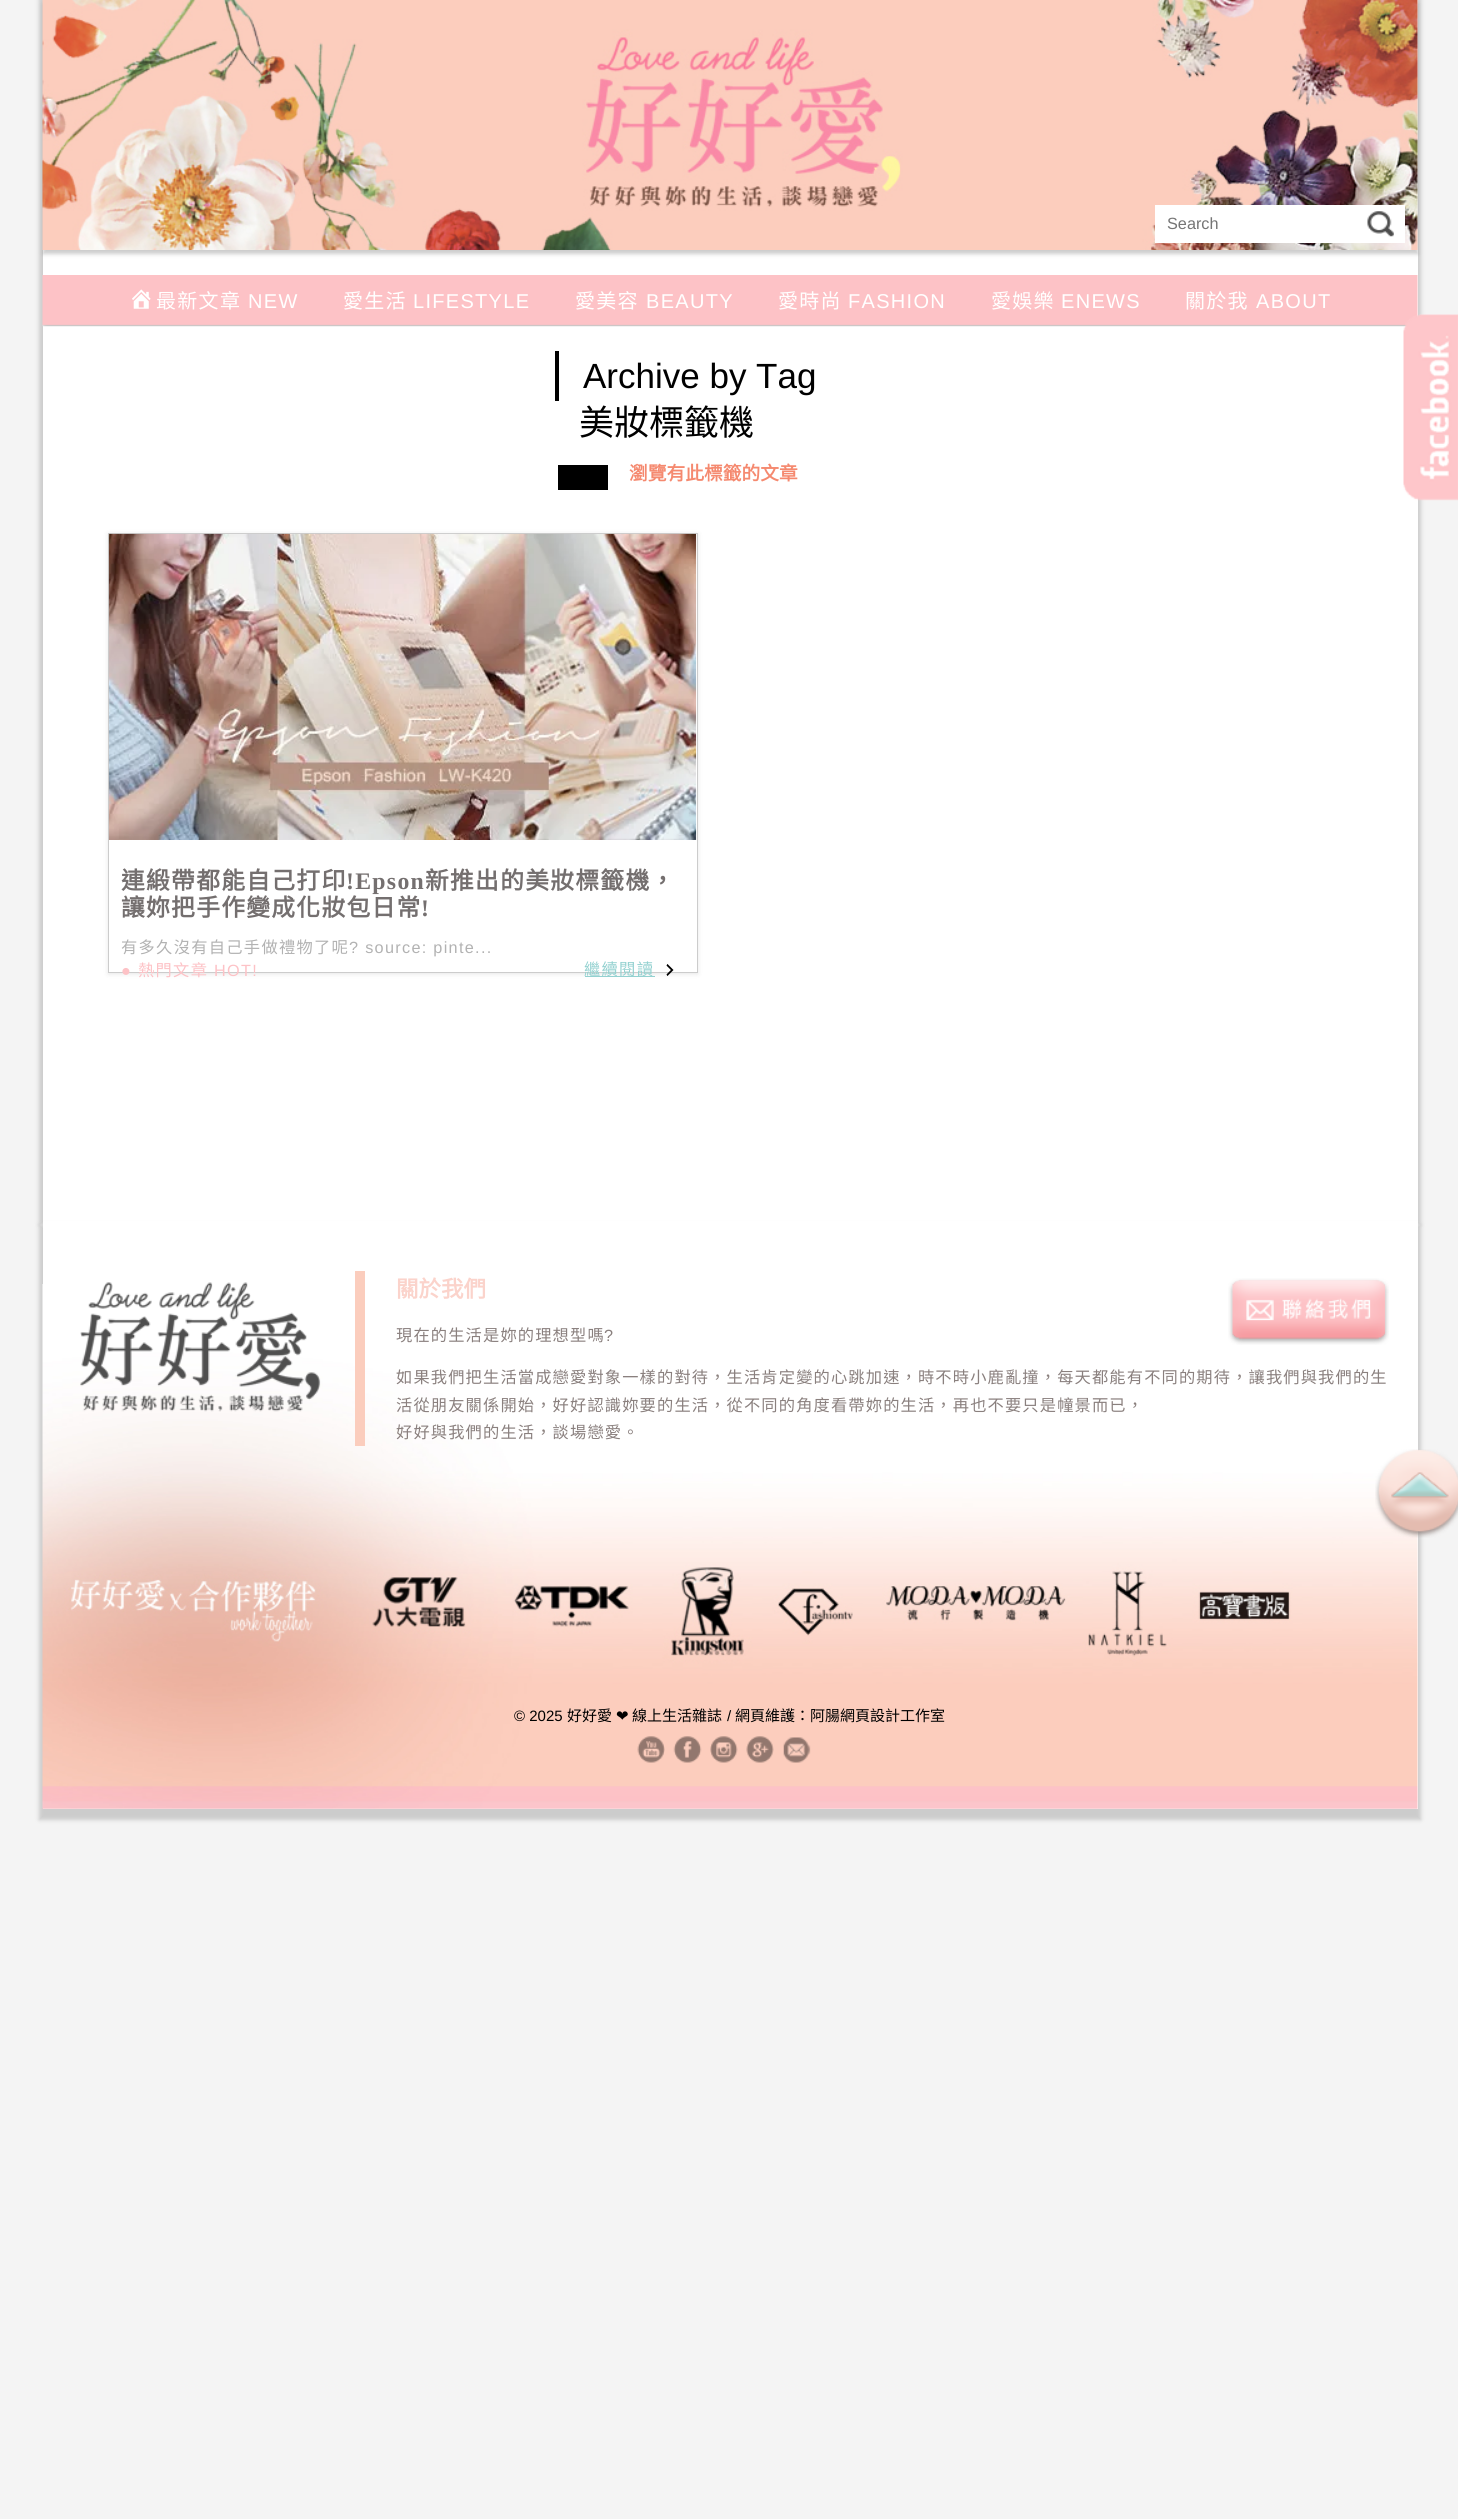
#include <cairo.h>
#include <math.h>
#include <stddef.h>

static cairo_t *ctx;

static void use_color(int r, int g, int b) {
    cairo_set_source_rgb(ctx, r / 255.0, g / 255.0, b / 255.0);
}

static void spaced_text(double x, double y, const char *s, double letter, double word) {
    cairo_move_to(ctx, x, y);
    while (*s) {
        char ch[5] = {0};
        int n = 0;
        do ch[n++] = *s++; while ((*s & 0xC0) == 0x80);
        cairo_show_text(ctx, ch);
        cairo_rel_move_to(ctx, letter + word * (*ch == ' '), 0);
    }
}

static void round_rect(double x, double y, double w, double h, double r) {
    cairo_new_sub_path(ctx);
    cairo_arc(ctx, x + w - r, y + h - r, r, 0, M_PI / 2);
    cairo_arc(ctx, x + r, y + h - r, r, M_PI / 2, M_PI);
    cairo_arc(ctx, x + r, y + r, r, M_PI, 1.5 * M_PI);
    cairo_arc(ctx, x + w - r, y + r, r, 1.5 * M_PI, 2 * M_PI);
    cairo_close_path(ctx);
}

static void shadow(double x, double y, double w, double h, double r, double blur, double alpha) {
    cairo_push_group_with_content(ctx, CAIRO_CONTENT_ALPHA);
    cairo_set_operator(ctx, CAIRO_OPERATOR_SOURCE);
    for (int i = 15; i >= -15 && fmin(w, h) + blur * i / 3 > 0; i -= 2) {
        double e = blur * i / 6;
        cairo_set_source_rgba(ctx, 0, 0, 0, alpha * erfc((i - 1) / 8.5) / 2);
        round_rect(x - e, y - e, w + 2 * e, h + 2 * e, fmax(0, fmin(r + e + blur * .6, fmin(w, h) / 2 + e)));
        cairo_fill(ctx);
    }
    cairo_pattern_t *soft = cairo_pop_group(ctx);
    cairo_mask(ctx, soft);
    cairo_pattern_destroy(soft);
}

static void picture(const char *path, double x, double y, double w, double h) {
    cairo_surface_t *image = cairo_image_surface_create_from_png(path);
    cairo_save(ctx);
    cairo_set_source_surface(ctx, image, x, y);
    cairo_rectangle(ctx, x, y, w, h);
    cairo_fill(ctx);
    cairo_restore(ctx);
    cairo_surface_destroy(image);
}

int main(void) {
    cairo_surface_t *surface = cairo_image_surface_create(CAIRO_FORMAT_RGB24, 1458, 2519);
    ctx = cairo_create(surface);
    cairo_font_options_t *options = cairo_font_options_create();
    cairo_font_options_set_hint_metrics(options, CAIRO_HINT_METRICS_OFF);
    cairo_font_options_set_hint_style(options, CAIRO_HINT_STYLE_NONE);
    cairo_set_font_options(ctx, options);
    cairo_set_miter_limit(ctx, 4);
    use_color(244, 244, 244);
    cairo_paint(ctx);
    use_color(204, 204, 204);
    shadow(39, -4, 1382, 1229, 0, 2, 1);
    use_color(255, 255, 255);
    cairo_rectangle(ctx, 43, 0, 1375, 1221);
    cairo_fill(ctx);
    use_color(153, 153, 153);
    shadow(43, 4, 1375, 250, 0, 2, 0.5);
    picture("img1.png", 42, 0, 1376, 250);
    use_color(255, 255, 255);
    cairo_rectangle(ctx, 1155, 205, 250, 38);
    cairo_fill(ctx);
    cairo_select_font_face(ctx, "Liberation Sans", CAIRO_FONT_SLANT_NORMAL, CAIRO_FONT_WEIGHT_NORMAL);
    cairo_set_font_size(ctx, 16.25);
    use_color(117, 117, 117);
    cairo_move_to(ctx, 1167, 229);
    cairo_show_text(ctx, "Search");
    picture("img2.png", 1367, 211, 27, 26);
    picture("img3.png", 42, 275, 1376, 52);
    picture("img4.png", 132, 289, 19, 20);
    cairo_select_font_face(ctx, "Noto Sans CJK TC", CAIRO_FONT_SLANT_NORMAL, CAIRO_FONT_WEIGHT_NORMAL);
    cairo_set_font_size(ctx, 20);
    use_color(255, 255, 255);
    spaced_text(156, 308, "最新文章", 1.3, 0);
    cairo_select_font_face(ctx, "Liberation Sans", CAIRO_FONT_SLANT_NORMAL, CAIRO_FONT_WEIGHT_NORMAL);
    spaced_text(248, 308, "NEW", 1.3, 0);
    cairo_select_font_face(ctx, "Noto Sans CJK TC", CAIRO_FONT_SLANT_NORMAL, CAIRO_FONT_WEIGHT_NORMAL);
    spaced_text(343, 308, "愛生活", 1.3, 0);
    cairo_select_font_face(ctx, "Liberation Sans", CAIRO_FONT_SLANT_NORMAL, CAIRO_FONT_WEIGHT_NORMAL);
    spaced_text(413, 308, "LIFESTYLE", 1.3, 0);
    cairo_select_font_face(ctx, "Noto Sans CJK TC", CAIRO_FONT_SLANT_NORMAL, CAIRO_FONT_WEIGHT_NORMAL);
    spaced_text(575, 308, "愛美容", 1.3, 0);
    cairo_select_font_face(ctx, "Liberation Sans", CAIRO_FONT_SLANT_NORMAL, CAIRO_FONT_WEIGHT_NORMAL);
    spaced_text(646, 308, "BEAUTY", 1.3, 0);
    cairo_select_font_face(ctx, "Noto Sans CJK TC", CAIRO_FONT_SLANT_NORMAL, CAIRO_FONT_WEIGHT_NORMAL);
    spaced_text(778, 308, "愛時尚", 1.3, 0);
    cairo_select_font_face(ctx, "Liberation Sans", CAIRO_FONT_SLANT_NORMAL, CAIRO_FONT_WEIGHT_NORMAL);
    spaced_text(848, 308, "FASHION", 1.3, 0);
    cairo_select_font_face(ctx, "Noto Sans CJK TC", CAIRO_FONT_SLANT_NORMAL, CAIRO_FONT_WEIGHT_NORMAL);
    spaced_text(991, 308, "愛娛樂", 1.3, 0);
    cairo_select_font_face(ctx, "Liberation Sans", CAIRO_FONT_SLANT_NORMAL, CAIRO_FONT_WEIGHT_NORMAL);
    spaced_text(1061, 308, "ENEWS", 1.3, 0);
    cairo_select_font_face(ctx, "Noto Sans CJK TC", CAIRO_FONT_SLANT_NORMAL, CAIRO_FONT_WEIGHT_NORMAL);
    spaced_text(1185, 308, "關於我", 1.3, 0);
    cairo_select_font_face(ctx, "Liberation Sans", CAIRO_FONT_SLANT_NORMAL, CAIRO_FONT_WEIGHT_NORMAL);
    spaced_text(1256, 308, "ABOUT", 1.3, 0);
    use_color(0, 0, 0);
    cairo_rectangle(ctx, 555, 351, 4, 50);
    cairo_fill(ctx);
    cairo_set_font_size(ctx, 35);
    cairo_move_to(ctx, 583, 388);
    cairo_show_text(ctx, "Archive by Tag");
    cairo_select_font_face(ctx, "Noto Sans CJK TC", CAIRO_FONT_SLANT_NORMAL, CAIRO_FONT_WEIGHT_NORMAL);
    cairo_move_to(ctx, 579, 435);
    cairo_show_text(ctx, "美妝標籤機");
    cairo_rectangle(ctx, 558, 465, 50, 25);
    cairo_fill(ctx);
    cairo_select_font_face(ctx, "Noto Sans CJK TC", CAIRO_FONT_SLANT_NORMAL, CAIRO_FONT_WEIGHT_BOLD);
    cairo_set_font_size(ctx, 18.75);
    use_color(245, 137, 111);
    cairo_move_to(ctx, 629, 480);
    cairo_show_text(ctx, "瀏覽有此標籤的文章");
    cairo_save(ctx);
    cairo_set_fill_rule(ctx, CAIRO_FILL_RULE_EVEN_ODD);
    cairo_new_path(ctx);
    cairo_move_to(ctx, 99, 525);
    cairo_line_to(ctx, 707, 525);
    cairo_line_to(ctx, 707, 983);
    cairo_line_to(ctx, 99, 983);
    cairo_close_path(ctx);
    cairo_move_to(ctx, 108, 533);
    cairo_line_to(ctx, 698, 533);
    cairo_line_to(ctx, 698, 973);
    cairo_line_to(ctx, 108, 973);
    cairo_close_path(ctx);
    cairo_clip(ctx);
    use_color(0, 0, 0);
    shadow(108, 534, 590, 440, 0, 2.5, 0.1);
    cairo_restore(ctx);
    cairo_rectangle(ctx, 108.5, 533.5, 589, 439);
    use_color(204, 204, 204);
    cairo_set_line_width(ctx, 1);
    cairo_stroke(ctx);
    picture("img5.png", 108, 533, 589, 307);
    cairo_set_font_size(ctx, 23.75);
    use_color(116, 111, 111);
    spaced_text(121, 889, "連緞帶都能自己打印", 1.3, 0);
    cairo_select_font_face(ctx, "Liberation Serif", CAIRO_FONT_SLANT_NORMAL, CAIRO_FONT_WEIGHT_BOLD);
    spaced_text(346, 889, "!Epson", 1.3, 0);
    cairo_select_font_face(ctx, "Noto Sans CJK TC", CAIRO_FONT_SLANT_NORMAL, CAIRO_FONT_WEIGHT_BOLD);
    spaced_text(425, 889, "新推出的美妝標籤機，", 1.3, 0);
    spaced_text(121, 916, "讓妳把手作變成化妝包日常", 1.3, 0);
    cairo_select_font_face(ctx, "Liberation Serif", CAIRO_FONT_SLANT_NORMAL, CAIRO_FONT_WEIGHT_BOLD);
    spaced_text(421, 916, "!", 1.3, 0);
    cairo_select_font_face(ctx, "Noto Sans CJK TC", CAIRO_FONT_SLANT_NORMAL, CAIRO_FONT_WEIGHT_NORMAL);
    cairo_set_font_size(ctx, 16.25);
    use_color(178, 178, 178);
    spaced_text(121, 953, "有多久沒有自己手做禮物了呢", 1.3, 0);
    cairo_select_font_face(ctx, "Liberation Sans", CAIRO_FONT_SLANT_NORMAL, CAIRO_FONT_WEIGHT_NORMAL);
    spaced_text(349, 953, "? source: pinte...", 1.3, 0);
    use_color(253, 194, 198);
    spaced_text(121, 976, "●", 1.3, 0);
    cairo_select_font_face(ctx, "Noto Sans CJK TC", CAIRO_FONT_SLANT_NORMAL, CAIRO_FONT_WEIGHT_NORMAL);
    spaced_text(138, 976, "熱門文章", 1.3, 0);
    cairo_select_font_face(ctx, "Liberation Sans", CAIRO_FONT_SLANT_NORMAL, CAIRO_FONT_WEIGHT_NORMAL);
    spaced_text(214, 976, "HOT!", 1.3, 0);
    use_color(147, 209, 208);
    cairo_rectangle(ctx, 585, 976, 70, 1);
    cairo_fill(ctx);
    cairo_select_font_face(ctx, "Noto Sans CJK TC", CAIRO_FONT_SLANT_NORMAL, CAIRO_FONT_WEIGHT_NORMAL);
    spaced_text(584, 975, "繼續閱讀", 1.3, 0);
    picture("img6.png", 666, 964, 8, 12);
    use_color(204, 204, 204);
    shadow(39, 1225, 1382, 595, 0, 2, 1);
    use_color(255, 255, 255);
    cairo_rectangle(ctx, 43, 1221, 1375, 588);
    cairo_fill(ctx);
    picture("img7.png", 42, 1284, 1376, 525);
    picture("img8.png", 1403, 314, 55, 187);
    picture("img9.png", 80, 1282, 241, 130);
    use_color(251, 205, 189);
    cairo_rectangle(ctx, 355, 1271, 10, 175);
    cairo_fill(ctx);
    cairo_select_font_face(ctx, "Noto Sans CJK TC", CAIRO_FONT_SLANT_NORMAL, CAIRO_FONT_WEIGHT_BOLD);
    cairo_set_font_size(ctx, 22.5);
    use_color(251, 211, 203);
    cairo_move_to(ctx, 396, 1297);
    cairo_show_text(ctx, "關於我們");
    picture("img10.png", 1228, 1278, 161, 67);
    cairo_select_font_face(ctx, "Noto Sans CJK TC", CAIRO_FONT_SLANT_NORMAL, CAIRO_FONT_WEIGHT_NORMAL);
    cairo_set_font_size(ctx, 16.25);
    use_color(138, 128, 126);
    spaced_text(396, 1341, "現在的生活是妳的理想型嗎", 1.15, 0);
    cairo_select_font_face(ctx, "Liberation Sans", CAIRO_FONT_SLANT_NORMAL, CAIRO_FONT_WEIGHT_NORMAL);
    spaced_text(604, 1341, "?", 1.15, 0);
    cairo_select_font_face(ctx, "Noto Sans CJK TC", CAIRO_FONT_SLANT_NORMAL, CAIRO_FONT_WEIGHT_NORMAL);
    spaced_text(396, 1383, "如果我們把生活當成戀愛對象一樣的對待，生活肯定變的心跳加速，時不時小鹿亂撞，每天都能有不同的期待，讓我們與我們的生", 1.15, 0);
    spaced_text(396, 1411, "活從朋友關係開始，好好認識妳要的生活，從不同的角度看帶妳的生活，再也不要只是幢景而已，", 1.15, 0);
    spaced_text(396, 1438, "好好與我們的生活，談場戀愛。", 1.15, 0);
    picture("img11.png", 1375, 1449, 83, 89);
    cairo_select_font_face(ctx, "Liberation Sans", CAIRO_FONT_SLANT_NORMAL, CAIRO_FONT_WEIGHT_NORMAL);
    cairo_set_font_size(ctx, 15);
    use_color(0, 0, 0);
    cairo_move_to(ctx, 514, 1721);
    cairo_show_text(ctx, "© 2025");
    cairo_select_font_face(ctx, "Noto Sans CJK TC", CAIRO_FONT_SLANT_NORMAL, CAIRO_FONT_WEIGHT_NORMAL);
    cairo_move_to(ctx, 567, 1721);
    cairo_show_text(ctx, "好好愛");
    cairo_select_font_face(ctx, "DejaVu Sans", CAIRO_FONT_SLANT_NORMAL, CAIRO_FONT_WEIGHT_NORMAL);
    cairo_move_to(ctx, 616, 1721);
    cairo_show_text(ctx, "❤");
    cairo_select_font_face(ctx, "Noto Sans CJK TC", CAIRO_FONT_SLANT_NORMAL, CAIRO_FONT_WEIGHT_NORMAL);
    cairo_move_to(ctx, 632, 1721);
    cairo_show_text(ctx, "線上生活雜誌");
    cairo_select_font_face(ctx, "Liberation Sans", CAIRO_FONT_SLANT_NORMAL, CAIRO_FONT_WEIGHT_NORMAL);
    cairo_move_to(ctx, 727, 1721);
    cairo_show_text(ctx, "/");
    cairo_select_font_face(ctx, "Noto Sans CJK TC", CAIRO_FONT_SLANT_NORMAL, CAIRO_FONT_WEIGHT_NORMAL);
    cairo_move_to(ctx, 735, 1721);
    cairo_show_text(ctx, "網頁維護：阿腸網頁設計工作室");
    picture("img12.png", 637, 1736, 28, 27);
    picture("img13.png", 673, 1736, 29, 27);
    picture("img14.png", 710, 1736, 28, 27);
    picture("img15.png", 746, 1736, 28, 27);
    picture("img16.png", 783, 1737, 28, 26);
    cairo_surface_write_to_png(surface, "result.png");
    cairo_font_options_destroy(options);
    cairo_destroy(ctx);
    cairo_surface_destroy(surface);
    return 0;
}
